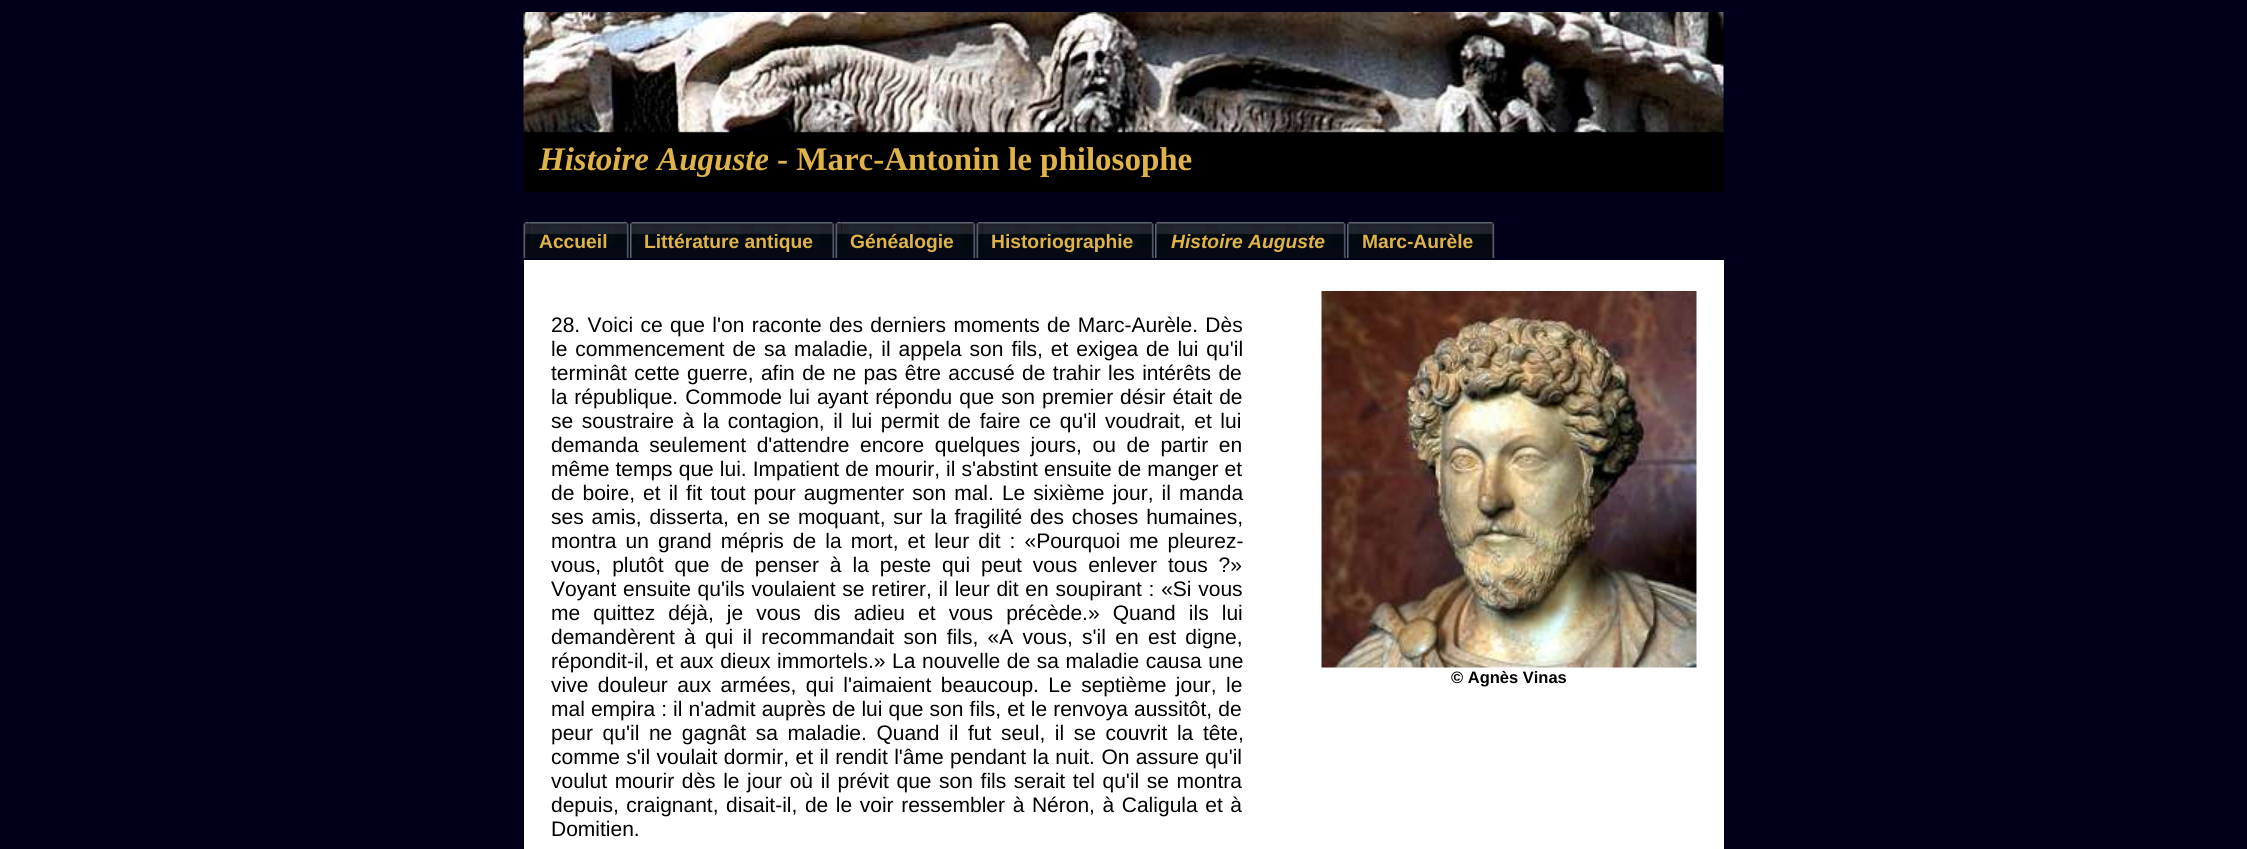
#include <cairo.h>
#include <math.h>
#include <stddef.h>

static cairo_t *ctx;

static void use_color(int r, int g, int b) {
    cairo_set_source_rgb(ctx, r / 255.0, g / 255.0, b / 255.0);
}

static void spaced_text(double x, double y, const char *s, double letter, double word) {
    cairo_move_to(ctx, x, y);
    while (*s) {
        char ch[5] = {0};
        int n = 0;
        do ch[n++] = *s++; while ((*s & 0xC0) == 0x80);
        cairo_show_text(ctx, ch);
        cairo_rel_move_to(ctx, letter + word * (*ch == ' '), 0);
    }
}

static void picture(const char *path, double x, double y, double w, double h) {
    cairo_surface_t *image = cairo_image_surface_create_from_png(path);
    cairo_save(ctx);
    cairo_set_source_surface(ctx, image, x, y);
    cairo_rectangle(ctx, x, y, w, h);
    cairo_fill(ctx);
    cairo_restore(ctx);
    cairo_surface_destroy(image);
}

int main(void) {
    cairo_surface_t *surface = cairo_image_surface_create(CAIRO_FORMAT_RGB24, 2247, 849);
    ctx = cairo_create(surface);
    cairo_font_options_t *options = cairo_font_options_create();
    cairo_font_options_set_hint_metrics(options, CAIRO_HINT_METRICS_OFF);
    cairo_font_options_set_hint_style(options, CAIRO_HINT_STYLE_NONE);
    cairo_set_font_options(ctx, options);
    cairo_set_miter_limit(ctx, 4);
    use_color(0, 0, 26);
    cairo_paint(ctx);
    picture("img1.png", 523, 12, 1201, 180);
    cairo_select_font_face(ctx, "Liberation Serif", CAIRO_FONT_SLANT_ITALIC, CAIRO_FONT_WEIGHT_BOLD);
    cairo_set_font_size(ctx, 33);
    use_color(224, 179, 72);
    cairo_move_to(ctx, 539, 170);
    cairo_show_text(ctx, "Histoire Auguste");
    cairo_select_font_face(ctx, "Liberation Serif", CAIRO_FONT_SLANT_NORMAL, CAIRO_FONT_WEIGHT_BOLD);
    cairo_move_to(ctx, 777, 170);
    cairo_show_text(ctx, "- Marc-Antonin le philosophe");
    picture("img2.png", 523, 222, 7, 36);
    picture("img3.png", 529, 222, 100, 36);
    cairo_select_font_face(ctx, "Liberation Sans", CAIRO_FONT_SLANT_NORMAL, CAIRO_FONT_WEIGHT_BOLD);
    cairo_set_font_size(ctx, 19.25);
    cairo_move_to(ctx, 539, 248);
    cairo_show_text(ctx, "Accueil");
    picture("img4.png", 630, 222, 6, 36);
    picture("img5.png", 636, 222, 199, 36);
    cairo_move_to(ctx, 644, 248);
    cairo_show_text(ctx, "Littérature antique");
    picture("img6.png", 835, 222, 7, 36);
    picture("img7.png", 841, 222, 135, 36);
    cairo_move_to(ctx, 850, 248);
    cairo_show_text(ctx, "Généalogie");
    picture("img6.png", 976, 222, 7, 36);
    picture("img8.png", 982, 222, 172, 36);
    cairo_move_to(ctx, 991, 248);
    cairo_show_text(ctx, "Historiographie");
    picture("img9.png", 1155, 222, 6, 36);
    picture("img10.png", 1161, 222, 185, 36);
    cairo_select_font_face(ctx, "Liberation Sans", CAIRO_FONT_SLANT_ITALIC, CAIRO_FONT_WEIGHT_BOLD);
    cairo_move_to(ctx, 1171, 248);
    cairo_show_text(ctx, "Histoire Auguste");
    picture("img9.png", 1347, 222, 6, 36);
    picture("img11.png", 1353, 222, 142, 36);
    cairo_select_font_face(ctx, "Liberation Sans", CAIRO_FONT_SLANT_NORMAL, CAIRO_FONT_WEIGHT_BOLD);
    cairo_move_to(ctx, 1362, 248);
    cairo_show_text(ctx, "Marc-Aurèle");
    use_color(255, 255, 255);
    cairo_rectangle(ctx, 524, 260, 1200, 589);
    cairo_fill(ctx);
    cairo_select_font_face(ctx, "Liberation Sans", CAIRO_FONT_SLANT_NORMAL, CAIRO_FONT_WEIGHT_NORMAL);
    cairo_set_font_size(ctx, 21);
    use_color(0, 0, 0);
    spaced_text(551, 332, "28. Voici ce que l'on raconte des derniers moments de Marc-Aurèle. Dès", 0, 1.5);
    spaced_text(551, 356, "le commencement de sa maladie, il appela son fils, et exigea de lui qu'il", 0, 2.1);
    spaced_text(551, 380, "terminât cette guerre, afin de ne pas être accusé de trahir les intérêts de", 0, 1.5);
    spaced_text(551, 404, "la république. Commode lui ayant répondu que son premier désir était de", 0, 1.1);
    spaced_text(551, 428, "se soustraire à la contagion, il lui permit de faire ce qu'il voudrait, et lui", 0, 2.75);
    spaced_text(551, 452, "demanda seulement d'attendre encore quelques jours, ou de partir en", 0, 4.75);
    spaced_text(551, 476, "même temps que lui. Impatient de mourir, il s'abstint ensuite de manger et", 0, 0.25);
    spaced_text(551, 500, "de boire, et il fit tout pour augmenter son mal. Le sixième jour, il manda", 0, 2.25);
    spaced_text(551, 524, "ses amis, disserta, en se moquant, sur la fragilité des choses humaines,", 0, 2);
    spaced_text(551, 548, "montra un grand mépris de la mort, et leur dit : «Pourquoi me pleurez-", 0, 3.25);
    spaced_text(551, 572, "vous, plutôt que de penser à la peste qui peut vous enlever tous ?»", 0, 5.1);
    spaced_text(551, 596, "Voyant ensuite qu'ils voulaient se retirer, il leur dit en soupirant : «Si vous", 0, 0.9);
    spaced_text(551, 620, "me quittez déjà, je vous dis adieu et vous précède.» Quand ils lui", 0, 7.25);
    spaced_text(551, 644, "demandèrent à qui il recommandait son fils, «A vous, s'il en est digne,", 0, 3.5);
    spaced_text(551, 668, "répondit-il, et aux dieux immortels.» La nouvelle de sa maladie causa une", 0, 0.75);
    spaced_text(551, 692, "vive douleur aux armées, qui l'aimaient beaucoup. Le septième jour, le", 0, 3.6);
    spaced_text(551, 716, "mal empira : il n'admit auprès de lui que son fils, et le renvoya aussitôt, de", 0, 0.25);
    spaced_text(551, 740, "peur qu'il ne gagnât sa maladie. Quand il fut seul, il se couvrit la tête,", 0, 3.75);
    spaced_text(551, 764, "comme s'il voulait dormir, et il rendit l'âme pendant la nuit. On assure qu'il", 0, 0.6);
    spaced_text(551, 788, "voulut mourir dès le jour où il prévit que son fils serait tel qu'il se montra", 0, 1.75);
    spaced_text(551, 812, "depuis, craignant, disait-il, de le voir ressembler à Néron, à Caligula et à", 0, 1.75);
    cairo_move_to(ctx, 551, 836);
    cairo_show_text(ctx, "Domitien.");
    picture("img12.png", 1321, 291, 376, 377);
    cairo_select_font_face(ctx, "Liberation Sans", CAIRO_FONT_SLANT_NORMAL, CAIRO_FONT_WEIGHT_BOLD);
    cairo_set_font_size(ctx, 16.5);
    cairo_move_to(ctx, 1451, 683);
    cairo_show_text(ctx, "© Agnès Vinas");
    cairo_surface_write_to_png(surface, "result.png");
    cairo_font_options_destroy(options);
    cairo_destroy(ctx);
    cairo_surface_destroy(surface);
    return 0;
}
